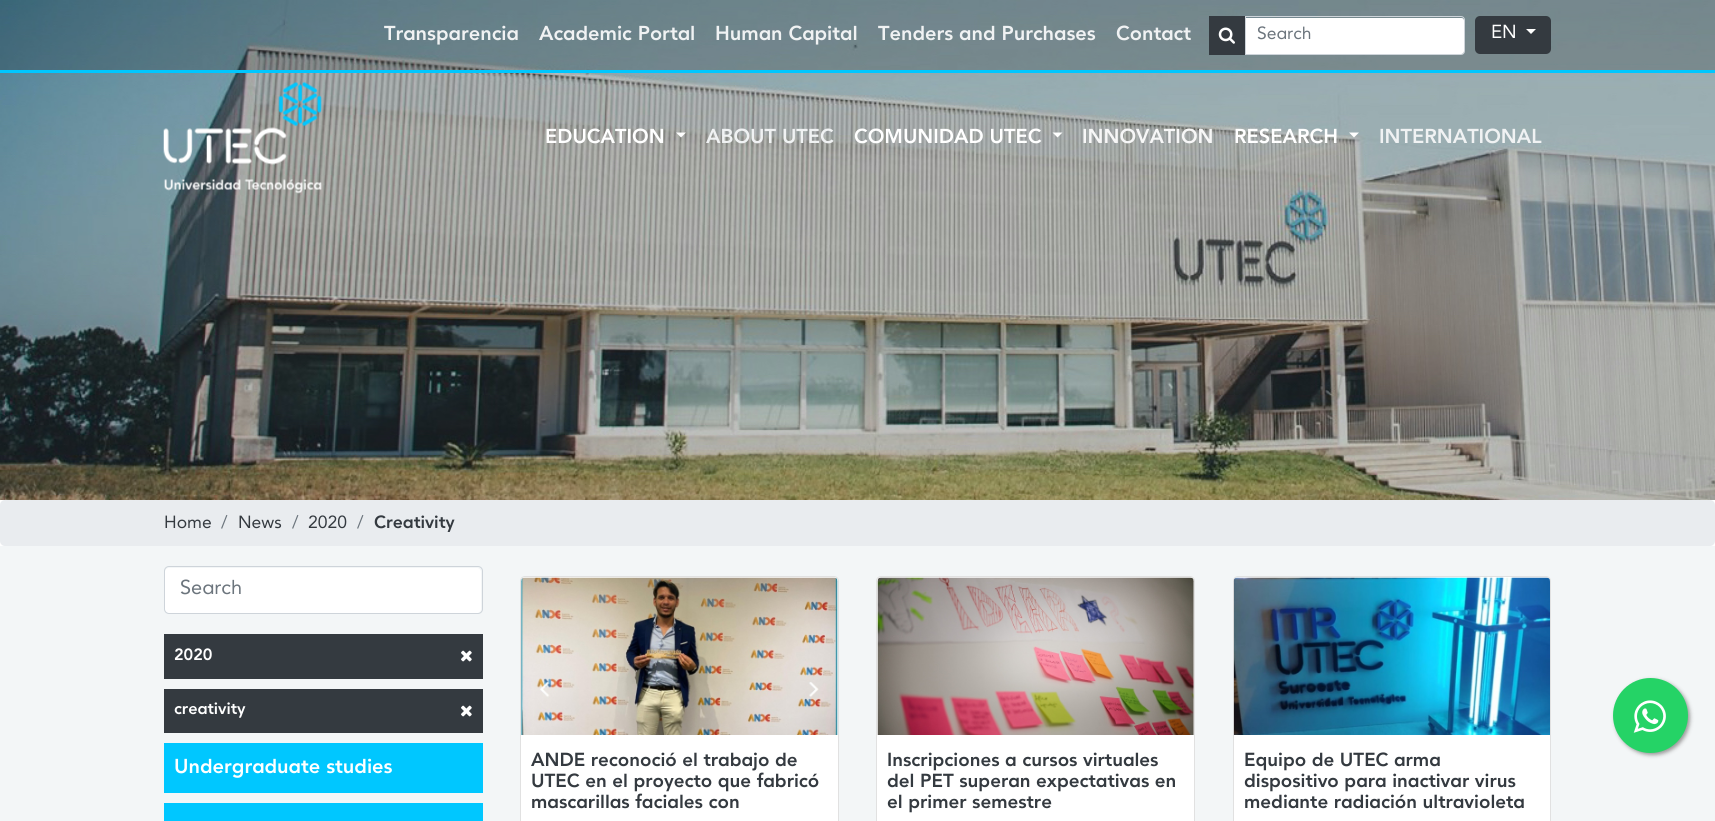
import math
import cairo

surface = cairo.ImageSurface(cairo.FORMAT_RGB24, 1715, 821)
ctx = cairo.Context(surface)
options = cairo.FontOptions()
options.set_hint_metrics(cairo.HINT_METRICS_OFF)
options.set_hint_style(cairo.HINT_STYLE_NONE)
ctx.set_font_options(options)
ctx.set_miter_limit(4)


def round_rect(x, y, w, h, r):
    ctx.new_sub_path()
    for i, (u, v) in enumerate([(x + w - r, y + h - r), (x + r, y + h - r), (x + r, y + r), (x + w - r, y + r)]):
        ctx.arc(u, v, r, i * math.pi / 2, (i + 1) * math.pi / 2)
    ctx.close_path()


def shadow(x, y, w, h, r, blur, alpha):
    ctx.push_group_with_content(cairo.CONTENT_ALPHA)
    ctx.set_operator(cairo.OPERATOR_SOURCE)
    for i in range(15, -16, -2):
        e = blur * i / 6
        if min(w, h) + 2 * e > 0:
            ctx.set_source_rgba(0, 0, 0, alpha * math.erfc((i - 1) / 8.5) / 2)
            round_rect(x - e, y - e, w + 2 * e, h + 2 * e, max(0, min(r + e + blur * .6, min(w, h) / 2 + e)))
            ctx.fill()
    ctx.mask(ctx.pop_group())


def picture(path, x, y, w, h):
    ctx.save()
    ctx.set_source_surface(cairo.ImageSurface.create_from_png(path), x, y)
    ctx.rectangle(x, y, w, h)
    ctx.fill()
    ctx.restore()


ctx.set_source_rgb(1, 1, 1)
ctx.paint()
picture("img1.png", 0, 0, 1715, 500)
ctx.set_source_rgba(0, 0, 0, 0.2)
ctx.rectangle(0, 0, 1715, 70)
ctx.fill()
ctx.set_source_rgb(0, 0.78, 1)
ctx.rectangle(0, 70, 1715, 3)
ctx.fill()
ctx.select_font_face("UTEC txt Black")
ctx.set_font_size(20)
ctx.set_source_rgb(0.941, 0.949, 0.953)
ctx.move_to(384, 40)
ctx.show_text("Transparencia")
ctx.move_to(539, 40)
ctx.show_text("Academic Portal")
ctx.move_to(715, 40)
ctx.show_text("Human Capital")
ctx.move_to(878, 40)
ctx.show_text("Tenders and Purchases")
ctx.move_to(1116, 40)
ctx.show_text("Contact")
ctx.set_source_rgb(0.204, 0.227, 0.251)
ctx.rectangle(1209, 16, 36, 39)
ctx.fill()
picture("img2.png", 1218, 27, 17, 17)
ctx.set_source_rgb(1, 1, 1)
ctx.new_path()
ctx.move_to(1246, 18)
ctx.line_to(1461.5, 18)
ctx.curve_to(1463, 18, 1464, 19, 1464, 20.5)
ctx.line_to(1464, 51.5)
ctx.curve_to(1464, 53, 1463, 54, 1461.5, 54)
ctx.line_to(1246, 54)
ctx.close_path()
ctx.fill()
ctx.new_path()
ctx.move_to(1245.5, 16.5)
ctx.line_to(1461, 16.5)
ctx.curve_to(1463, 16.5, 1464.5, 18, 1464.5, 20)
ctx.line_to(1464.5, 51)
ctx.curve_to(1464.5, 53, 1463, 54.5, 1461, 54.5)
ctx.line_to(1245.5, 54.5)
ctx.close_path()
ctx.set_source_rgb(0.808, 0.831, 0.855)
ctx.set_line_width(1)
ctx.stroke()
ctx.select_font_face("UTEC txt")
ctx.set_font_size(17.5)
ctx.set_source_rgb(0.424, 0.459, 0.49)
ctx.move_to(1257, 39)
ctx.show_text("Search")
ctx.set_source_rgb(0.204, 0.227, 0.251)
round_rect(1475, 16, 76, 38, 5)
ctx.fill()
ctx.set_font_size(18.75)
ctx.set_source_rgb(1, 1, 1)
ctx.move_to(1491, 38)
ctx.show_text("EN")
ctx.new_path()
ctx.move_to(1526, 29)
ctx.line_to(1536, 29)
ctx.line_to(1531, 34)
ctx.close_path()
ctx.fill()
picture("img3.png", 163, 82, 159, 112)
ctx.select_font_face("UTEC txt Black")
ctx.set_font_size(20)
ctx.move_to(545, 143)
ctx.show_text("EDUCATION")
ctx.new_path()
ctx.move_to(676, 132.5)
ctx.line_to(686, 132.5)
ctx.line_to(681, 137.5)
ctx.close_path()
ctx.fill()
ctx.set_source_rgb(0.941, 0.949, 0.953)
ctx.move_to(706, 143)
ctx.show_text("ABOUT UTEC")
ctx.set_source_rgb(1, 1, 1)
ctx.move_to(854, 143)
ctx.show_text("COMUNIDAD UTEC")
ctx.new_path()
ctx.move_to(1052.5, 132.5)
ctx.line_to(1062.5, 132.5)
ctx.line_to(1057.5, 137.5)
ctx.close_path()
ctx.fill()
ctx.set_source_rgb(0.965, 0.965, 0.965)
ctx.move_to(1082, 143)
ctx.show_text("INNOVATION")
ctx.set_source_rgb(1, 1, 1)
ctx.move_to(1234, 143)
ctx.show_text("RESEARCH")
ctx.new_path()
ctx.move_to(1349, 132.5)
ctx.line_to(1359, 132.5)
ctx.line_to(1354, 137.5)
ctx.close_path()
ctx.fill()
ctx.set_source_rgb(0.941, 0.949, 0.953)
ctx.move_to(1379, 143)
ctx.show_text("INTERNATIONAL")
ctx.set_source_rgb(0.914, 0.925, 0.937)
round_rect(0, 500, 1715, 46, 5)
ctx.fill()
ctx.select_font_face("UTEC txt")
ctx.set_font_size(17.5)
ctx.set_source_rgb(0.204, 0.227, 0.251)
ctx.move_to(164, 528)
ctx.show_text("Home")
ctx.set_source_rgb(0.424, 0.459, 0.49)
ctx.move_to(221, 528)
ctx.show_text("/")
ctx.set_source_rgb(0.204, 0.227, 0.251)
ctx.move_to(238, 528)
ctx.show_text("News")
ctx.set_source_rgb(0.424, 0.459, 0.49)
ctx.move_to(292, 528)
ctx.show_text("/")
ctx.set_source_rgb(0.204, 0.227, 0.251)
ctx.move_to(308, 528)
ctx.show_text("2020")
ctx.set_source_rgb(0.424, 0.459, 0.49)
ctx.move_to(357, 528)
ctx.show_text("/")
ctx.select_font_face("UTEC txt Black")
ctx.set_source_rgb(0.204, 0.227, 0.251)
ctx.move_to(374, 528)
ctx.show_text("Creativity")
ctx.set_source_rgb(0.953, 0.961, 0.965)
ctx.rectangle(0, 546, 1715, 275)
ctx.fill()
ctx.set_source_rgb(1, 1, 1)
round_rect(165, 568, 316, 45, 4)
ctx.fill()
round_rect(164.5, 566.5, 318, 47, 4.5)
ctx.set_source_rgb(0.808, 0.831, 0.855)
ctx.stroke()
ctx.select_font_face("UTEC txt")
ctx.set_font_size(20)
ctx.set_source_rgb(0.424, 0.459, 0.49)
ctx.move_to(180, 594)
ctx.show_text("Search")
ctx.set_source_rgb(0.204, 0.227, 0.251)
ctx.rectangle(164, 634, 319, 45)
ctx.fill()
ctx.select_font_face("UTEC txt Black")
ctx.set_font_size(16.25)
ctx.set_source_rgb(1, 1, 1)
ctx.move_to(174, 660)
ctx.show_text("2020")
picture("img4.png", 461, 650, 11, 12)
ctx.set_source_rgb(0.204, 0.227, 0.251)
ctx.rectangle(164, 689, 319, 44)
ctx.fill()
ctx.set_source_rgb(1, 1, 1)
ctx.move_to(174, 714)
ctx.show_text("creativity")
picture("img4.png", 461, 705, 11, 12)
ctx.set_source_rgb(0, 0.78, 1)
ctx.rectangle(164, 743, 319, 50)
ctx.fill()
ctx.set_font_size(20)
ctx.set_source_rgb(1, 1, 1)
ctx.move_to(174, 773)
ctx.show_text("Undergraduate studies")
ctx.set_source_rgb(0, 0.78, 1)
ctx.rectangle(164, 803, 319, 18)
ctx.fill()
ctx.set_source_rgb(1, 1, 1)
round_rect(520, 576, 319, 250, 5)
ctx.fill()
round_rect(520.5, 576.5, 318, 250, 4.5)
ctx.set_source_rgba(0, 0, 0, 0.12)
ctx.stroke()
picture("img5.png", 521, 577, 317, 158)
ctx.set_font_size(18.75)
ctx.set_source_rgb(0.204, 0.227, 0.251)
ctx.move_to(531, 766)
ctx.show_text("ANDE reconoció el trabajo de")
ctx.move_to(531, 787)
ctx.show_text("UTEC en el proyecto que fabricó")
ctx.move_to(531, 808)
ctx.show_text("mascarillas faciales con")
ctx.set_source_rgb(1, 1, 1)
round_rect(876, 576, 319, 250, 5)
ctx.fill()
round_rect(876.5, 576.5, 318, 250, 4.5)
ctx.set_source_rgba(0, 0, 0, 0.12)
ctx.stroke()
picture("img6.png", 877, 577, 317, 158)
ctx.set_source_rgb(0.204, 0.227, 0.251)
ctx.move_to(887, 766)
ctx.show_text("Inscripciones a cursos virtuales")
ctx.move_to(887, 787)
ctx.show_text("del PET superan expectativas en")
ctx.move_to(887, 808)
ctx.show_text("el primer semestre")
ctx.set_source_rgb(1, 1, 1)
round_rect(1233, 576, 318, 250, 5)
ctx.fill()
round_rect(1233.5, 576.5, 317, 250, 4.5)
ctx.set_source_rgba(0, 0, 0, 0.12)
ctx.stroke()
picture("img7.png", 1233, 577, 317, 158)
ctx.set_source_rgb(0.204, 0.227, 0.251)
ctx.move_to(1244, 766)
ctx.show_text("Equipo de UTEC arma")
ctx.move_to(1244, 787)
ctx.show_text("dispositivo para inactivar virus")
ctx.move_to(1244, 808)
ctx.show_text("mediante radiación ultravioleta")
ctx.set_source_rgb(0.6, 0.6, 0.6)
shadow(1615, 680, 75, 75, 37.5, 2, 1)
ctx.set_source_rgb(0.145, 0.827, 0.4)
ctx.arc(1650.5, 715.5, 37.5, 0, 2 * math.pi)
ctx.fill()
picture("img8.png", 1633, 700, 33, 33)
surface.write_to_png("page.png")
